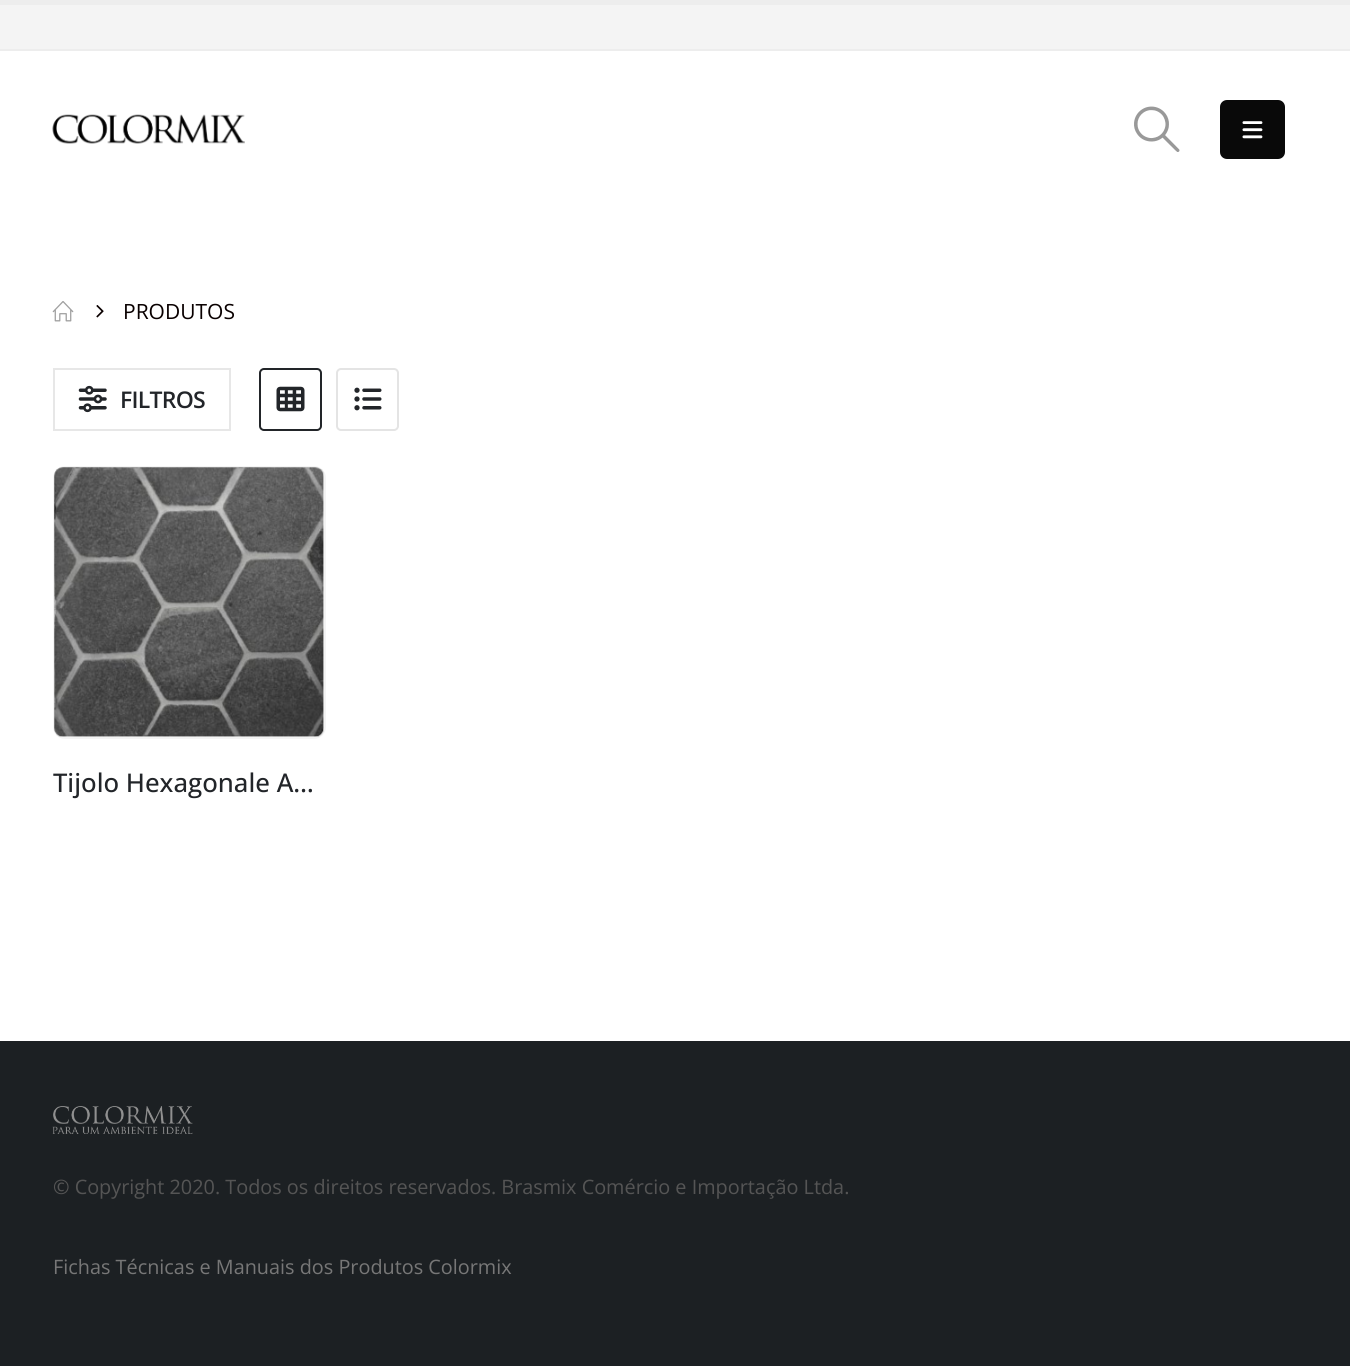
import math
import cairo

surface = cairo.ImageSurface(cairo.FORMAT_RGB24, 1350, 1366)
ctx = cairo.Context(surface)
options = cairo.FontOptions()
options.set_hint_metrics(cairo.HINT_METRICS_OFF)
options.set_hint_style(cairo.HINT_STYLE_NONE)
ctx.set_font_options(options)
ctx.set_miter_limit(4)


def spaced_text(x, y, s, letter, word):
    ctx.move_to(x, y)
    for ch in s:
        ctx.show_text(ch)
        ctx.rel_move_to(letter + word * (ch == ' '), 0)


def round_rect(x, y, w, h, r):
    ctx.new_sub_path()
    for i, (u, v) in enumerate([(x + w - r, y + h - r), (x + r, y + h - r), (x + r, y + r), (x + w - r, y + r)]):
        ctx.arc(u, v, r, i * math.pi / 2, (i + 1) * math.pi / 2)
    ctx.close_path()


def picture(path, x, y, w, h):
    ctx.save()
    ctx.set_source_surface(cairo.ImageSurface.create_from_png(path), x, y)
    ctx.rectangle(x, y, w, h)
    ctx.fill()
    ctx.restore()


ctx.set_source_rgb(1, 1, 1)
ctx.paint()
ctx.set_source_rgb(0.929, 0.929, 0.929)
ctx.rectangle(0, 0, 1350, 5)
ctx.fill()
ctx.set_source_rgb(0.957, 0.957, 0.957)
ctx.rectangle(0, 5, 1350, 44)
ctx.fill()
ctx.set_source_rgb(0.929, 0.929, 0.929)
ctx.rectangle(0, 49, 1350, 2)
ctx.fill()
picture("img1.png", 52, 114, 193, 30)
picture("img2.png", 1134, 106, 46, 46)
ctx.set_source_rgb(0.039, 0.039, 0.039)
round_rect(1220, 100, 65, 59, 7)
ctx.fill()
picture("img3.png", 1242, 121, 21, 18)
picture("img4.png", 52, 301, 22, 21)
picture("img5.png", 96, 305, 8, 13)
ctx.select_font_face("Open Sans")
ctx.set_font_size(21)
ctx.set_source_rgb(0.039, 0, 0)
ctx.move_to(123, 319)
ctx.show_text("PRODUTOS")
ctx.rectangle(54, 369, 176, 61)
ctx.set_source_rgb(0.906, 0.906, 0.906)
ctx.stroke()
picture("img6.png", 78, 385, 29, 28)
ctx.select_font_face("Open Sans SemiBold")
ctx.set_font_size(23)
ctx.set_source_rgb(0.133, 0.145, 0.161)
spaced_text(120, 408, "FILTROS", -0.75, 0)
round_rect(260, 369, 61, 61, 4)
ctx.stroke()
picture("img7.png", 276, 386, 29, 26)
round_rect(337, 369, 61, 61, 4)
ctx.set_source_rgb(0.894, 0.894, 0.894)
ctx.stroke()
picture("img8.png", 354, 387, 28, 24)
round_rect(54, 467, 271, 271, 11)
ctx.set_source_rgb(0.957, 0.957, 0.957)
ctx.stroke()
picture("img9.png", 54, 467, 270, 270)
ctx.save()
ctx.rectangle(53, 767, 273, 33)
ctx.clip()
ctx.select_font_face("Open Sans Medium")
ctx.set_font_size(25.75)
ctx.set_source_rgb(0.133, 0.145, 0.161)
ctx.move_to(53, 792)
ctx.show_text("Tijolo Hexagonale A…")
ctx.restore()
ctx.set_source_rgb(0.11, 0.125, 0.137)
ctx.rectangle(0, 1041, 1350, 325)
ctx.fill()
picture("img10.png", 52, 1106, 141, 28)
ctx.select_font_face("Open Sans")
ctx.set_font_size(19.85)
ctx.set_source_rgb(0.333, 0.333, 0.333)
ctx.move_to(53, 1194)
ctx.show_text("© Copyright 2020. Todos os direitos reservados. Brasmix Comércio e Importação Ltda.")
ctx.set_source_rgb(0.467, 0.467, 0.467)
ctx.move_to(53, 1274)
ctx.show_text("Fichas Técnicas e Manuais dos Produtos Colormix")
surface.write_to_png("page.png")
